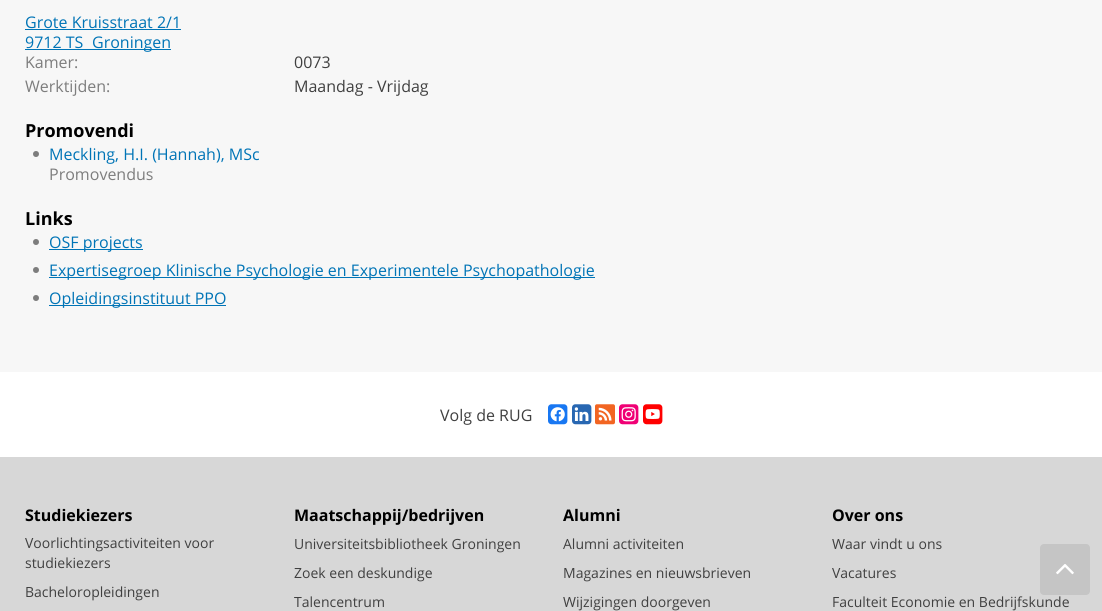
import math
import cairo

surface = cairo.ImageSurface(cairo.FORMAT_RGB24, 1102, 611)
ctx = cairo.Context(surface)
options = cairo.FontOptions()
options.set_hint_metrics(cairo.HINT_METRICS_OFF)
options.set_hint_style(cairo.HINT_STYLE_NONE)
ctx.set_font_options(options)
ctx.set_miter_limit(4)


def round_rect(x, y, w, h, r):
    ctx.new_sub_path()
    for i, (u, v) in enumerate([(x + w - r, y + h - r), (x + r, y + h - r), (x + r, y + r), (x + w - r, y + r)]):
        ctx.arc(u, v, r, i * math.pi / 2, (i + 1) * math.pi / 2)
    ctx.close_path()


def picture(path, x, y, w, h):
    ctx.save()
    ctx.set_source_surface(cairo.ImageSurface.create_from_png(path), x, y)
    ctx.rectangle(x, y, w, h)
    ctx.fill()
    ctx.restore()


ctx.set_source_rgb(0.965, 0.965, 0.965)
ctx.paint()
ctx.select_font_face("Open Sans")
ctx.set_font_size(16)
ctx.set_source_rgb(0, 0.455, 0.714)
ctx.move_to(25, 28)
ctx.show_text("Grote Kruisstraat 2/1")
ctx.rectangle(25, 29, 156, 1)
ctx.fill()
ctx.move_to(25, 48)
ctx.show_text("9712 TS")
ctx.rectangle(25, 49, 146, 1)
ctx.fill()
ctx.move_to(92, 48)
ctx.show_text("Groningen")
ctx.set_source_rgb(0.49, 0.49, 0.49)
ctx.move_to(25, 68)
ctx.show_text("Kamer:")
ctx.set_source_rgb(0.251, 0.251, 0.251)
ctx.move_to(294, 68)
ctx.show_text("0073")
ctx.set_source_rgb(0.49, 0.49, 0.49)
ctx.move_to(25, 92)
ctx.show_text("Werktijden:")
ctx.set_source_rgb(0.251, 0.251, 0.251)
ctx.move_to(294, 92)
ctx.show_text("Maandag - Vrijdag")
ctx.select_font_face("Open Sans", cairo.FONT_SLANT_NORMAL, cairo.FONT_WEIGHT_BOLD)
ctx.set_font_size(18)
ctx.set_source_rgb(0, 0, 0)
ctx.move_to(25, 137)
ctx.show_text("Promovendi")
ctx.set_source_rgb(0.49, 0.49, 0.49)
ctx.new_path()
ctx.arc(36, 154, 3, 0, 2 * math.pi)
ctx.fill()
ctx.select_font_face("Open Sans")
ctx.set_font_size(16)
ctx.set_source_rgb(0, 0.455, 0.714)
ctx.move_to(49, 160)
ctx.show_text("Meckling, H.I. (Hannah), MSc")
ctx.set_source_rgb(0.49, 0.49, 0.49)
ctx.move_to(49, 180)
ctx.show_text("Promovendus")
ctx.select_font_face("Open Sans", cairo.FONT_SLANT_NORMAL, cairo.FONT_WEIGHT_BOLD)
ctx.set_font_size(18)
ctx.set_source_rgb(0, 0, 0)
ctx.move_to(25, 225)
ctx.show_text("Links")
ctx.set_source_rgb(0.49, 0.49, 0.49)
ctx.new_path()
ctx.arc(36, 242, 3, 0, 2 * math.pi)
ctx.fill()
ctx.set_source_rgb(0, 0.455, 0.714)
ctx.rectangle(49, 249, 94, 1)
ctx.fill()
ctx.select_font_face("Open Sans")
ctx.set_font_size(16)
ctx.move_to(49, 248)
ctx.show_text("OSF projects")
ctx.set_source_rgb(0.49, 0.49, 0.49)
ctx.new_path()
ctx.arc(36, 270, 3, 0, 2 * math.pi)
ctx.fill()
ctx.set_source_rgb(0, 0.455, 0.714)
ctx.rectangle(49, 277, 546, 1)
ctx.fill()
ctx.move_to(49, 276)
ctx.show_text("Expertisegroep Klinische Psychologie en Experimentele Psychopathologie")
ctx.set_source_rgb(0.49, 0.49, 0.49)
ctx.new_path()
ctx.arc(36, 298, 3, 0, 2 * math.pi)
ctx.fill()
ctx.set_source_rgb(0, 0.455, 0.714)
ctx.rectangle(49, 305, 177, 1)
ctx.fill()
ctx.move_to(49, 304)
ctx.show_text("Opleidingsinstituut PPO")
ctx.set_source_rgb(1, 1, 1)
ctx.rectangle(0, 372, 1102, 85)
ctx.fill()
ctx.set_source_rgb(0.251, 0.251, 0.251)
ctx.move_to(440, 421)
ctx.show_text("Volg de RUG")
picture("img1.png", 548, 404, 20, 21)
picture("img2.png", 572, 404, 20, 21)
picture("img3.png", 595, 404, 20, 21)
picture("img4.png", 619, 404, 20, 21)
picture("img5.png", 643, 404, 20, 21)
ctx.set_source_rgb(0.843, 0.843, 0.843)
ctx.rectangle(0, 457, 1102, 154)
ctx.fill()
ctx.select_font_face("Open Sans", cairo.FONT_SLANT_NORMAL, cairo.FONT_WEIGHT_BOLD)
ctx.set_source_rgb(0, 0, 0)
ctx.move_to(25, 521)
ctx.show_text("Studiekiezers")
ctx.select_font_face("Open Sans")
ctx.set_font_size(14)
ctx.set_source_rgb(0.251, 0.251, 0.251)
ctx.move_to(25, 548)
ctx.show_text("Voorlichtingsactiviteiten voor")
ctx.move_to(25, 568)
ctx.show_text("studiekiezers")
ctx.move_to(25, 597)
ctx.show_text("Bacheloropleidingen")
ctx.select_font_face("Open Sans", cairo.FONT_SLANT_NORMAL, cairo.FONT_WEIGHT_BOLD)
ctx.set_font_size(16)
ctx.set_source_rgb(0, 0, 0)
ctx.move_to(294, 521)
ctx.show_text("Maatschappij/bedrijven")
ctx.select_font_face("Open Sans")
ctx.set_font_size(14)
ctx.set_source_rgb(0.251, 0.251, 0.251)
ctx.move_to(294, 549)
ctx.show_text("Universiteitsbibliotheek Groningen")
ctx.move_to(294, 578)
ctx.show_text("Zoek een deskundige")
ctx.move_to(294, 607)
ctx.show_text("Talencentrum")
ctx.select_font_face("Open Sans", cairo.FONT_SLANT_NORMAL, cairo.FONT_WEIGHT_BOLD)
ctx.set_font_size(16)
ctx.set_source_rgb(0, 0, 0)
ctx.move_to(563, 521)
ctx.show_text("Alumni")
ctx.select_font_face("Open Sans")
ctx.set_font_size(14)
ctx.set_source_rgb(0.251, 0.251, 0.251)
ctx.move_to(563, 549)
ctx.show_text("Alumni activiteiten")
ctx.move_to(563, 578)
ctx.show_text("Magazines en nieuwsbrieven")
ctx.move_to(563, 607)
ctx.show_text("Wijzigingen doorgeven")
ctx.select_font_face("Open Sans", cairo.FONT_SLANT_NORMAL, cairo.FONT_WEIGHT_BOLD)
ctx.set_font_size(16)
ctx.set_source_rgb(0, 0, 0)
ctx.move_to(832, 521)
ctx.show_text("Over ons")
ctx.select_font_face("Open Sans")
ctx.set_font_size(14)
ctx.set_source_rgb(0.251, 0.251, 0.251)
ctx.move_to(832, 549)
ctx.show_text("Waar vindt u ons")
ctx.move_to(832, 578)
ctx.show_text("Vacatures")
ctx.move_to(832, 607)
ctx.show_text("Faculteit Economie en Bedrijfskunde")
ctx.set_source_rgb(0.773, 0.773, 0.773)
round_rect(1040, 544, 50, 51, 4)
ctx.fill()
picture("img6.png", 1056, 564, 18, 11)
surface.write_to_png("page.png")
